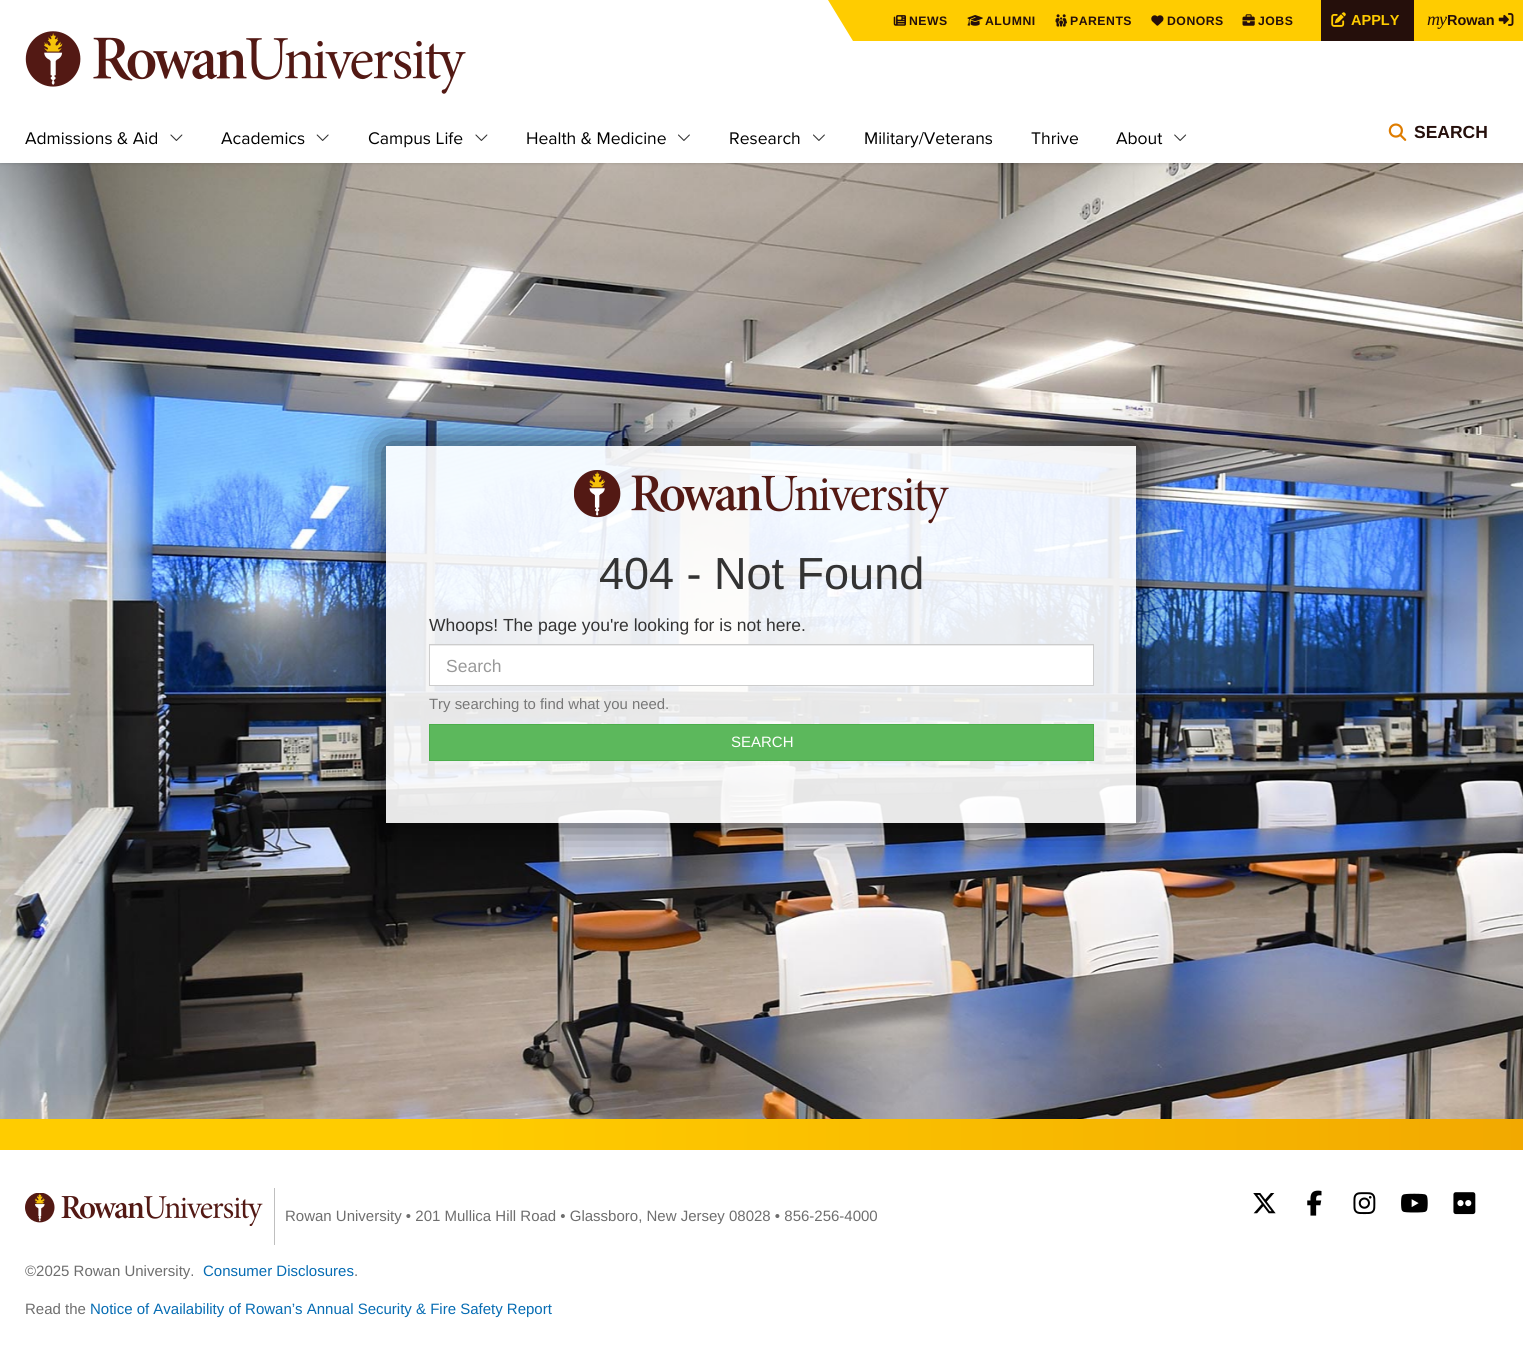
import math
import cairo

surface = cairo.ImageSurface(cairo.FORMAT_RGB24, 1523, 1366)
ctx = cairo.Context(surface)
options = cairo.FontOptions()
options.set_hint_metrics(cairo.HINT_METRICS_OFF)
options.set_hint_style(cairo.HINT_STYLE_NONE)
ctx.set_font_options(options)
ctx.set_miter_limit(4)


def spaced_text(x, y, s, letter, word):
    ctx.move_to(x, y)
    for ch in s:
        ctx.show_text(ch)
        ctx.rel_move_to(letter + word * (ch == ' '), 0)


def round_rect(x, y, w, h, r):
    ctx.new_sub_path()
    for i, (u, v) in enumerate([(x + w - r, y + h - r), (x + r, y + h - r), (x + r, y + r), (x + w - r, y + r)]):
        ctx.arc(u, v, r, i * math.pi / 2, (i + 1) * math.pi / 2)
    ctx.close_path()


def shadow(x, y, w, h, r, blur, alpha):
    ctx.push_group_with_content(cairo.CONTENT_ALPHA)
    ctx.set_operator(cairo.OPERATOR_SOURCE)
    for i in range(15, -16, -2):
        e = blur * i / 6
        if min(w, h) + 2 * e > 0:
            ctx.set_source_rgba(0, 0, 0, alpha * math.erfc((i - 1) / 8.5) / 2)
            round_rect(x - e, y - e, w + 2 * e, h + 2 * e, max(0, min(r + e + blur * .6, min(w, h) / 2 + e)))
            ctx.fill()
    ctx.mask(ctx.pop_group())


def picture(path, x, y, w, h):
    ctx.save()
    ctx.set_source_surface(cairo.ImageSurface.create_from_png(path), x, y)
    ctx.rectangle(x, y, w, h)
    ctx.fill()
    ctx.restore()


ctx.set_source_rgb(1, 1, 1)
ctx.paint()
picture("img1.png", 0, 163, 1523, 956)
ctx.set_source_rgb(0, 0, 0)
shadow(0, 0, 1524, 163, 0, 2, 0.19)
ctx.set_source_rgb(1, 1, 1)
ctx.rectangle(0, 0, 1523, 163)
ctx.fill()
ctx.set_source_rgb(1, 0.8, 0)
ctx.rectangle(853, 0, 670, 41)
ctx.fill()
ctx.new_path()
ctx.move_to(853, 0)
ctx.line_to(828, 0)
ctx.line_to(853, 41)
ctx.close_path()
ctx.fill()
picture("img2.png", 893, 15, 13, 11)
ctx.select_font_face("Liberation Sans", cairo.FONT_SLANT_NORMAL, cairo.FONT_WEIGHT_BOLD)
ctx.set_font_size(12.25)
ctx.set_source_rgb(0.145, 0.059, 0.043)
spaced_text(909, 25, "NEWS", 0.5, 0)
picture("img3.png", 967, 15, 16, 11)
spaced_text(985, 25, "ALUMNI", 0.5, 0)
picture("img4.png", 1055, 14, 12, 13)
spaced_text(1070, 25, "PARENTS", 0.5, 0)
picture("img5.png", 1151, 15, 13, 11)
spaced_text(1167, 25, "DONORS", 0.5, 0)
picture("img6.png", 1242, 14, 13, 12)
spaced_text(1258, 25, "JOBS", 0.5, 0)
ctx.rectangle(1321, 0, 93, 41)
ctx.fill()
picture("img7.png", 1331, 12, 15, 15)
ctx.set_font_size(14.5)
ctx.set_source_rgb(1, 0.8, 0)
ctx.move_to(1351, 25)
ctx.show_text("APPLY")
ctx.select_font_face("Liberation Serif", cairo.FONT_SLANT_ITALIC)
ctx.set_font_size(18)
ctx.set_source_rgb(0.145, 0.059, 0.043)
spaced_text(1427, 25, "my", -1, 0)
ctx.select_font_face("Liberation Sans", cairo.FONT_SLANT_NORMAL, cairo.FONT_WEIGHT_BOLD)
ctx.set_font_size(14.5)
ctx.move_to(1447, 25)
ctx.show_text("Rowan")
picture("img8.png", 1498, 13, 16, 13)
picture("img9.png", 25, 31, 441, 63)
ctx.select_font_face("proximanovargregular")
ctx.set_font_size(17.5)
ctx.set_source_rgb(0, 0, 0)
ctx.move_to(25, 144)
ctx.show_text("Admissions & Aid")
picture("img10.png", 170, 134, 13, 7)
ctx.move_to(221, 144)
ctx.show_text("Academics")
picture("img11.png", 316, 134, 13, 7)
ctx.move_to(368, 144)
ctx.show_text("Campus Life")
picture("img10.png", 475, 134, 13, 7)
ctx.move_to(526, 144)
ctx.show_text("Health & Medicine")
picture("img12.png", 678, 134, 12, 7)
ctx.move_to(729, 144)
ctx.show_text("Research")
picture("img12.png", 813, 134, 12, 7)
ctx.move_to(864, 144)
ctx.show_text("Military/Veterans")
ctx.move_to(1031, 144)
ctx.show_text("Thrive")
ctx.move_to(1116, 144)
ctx.show_text("About")
picture("img13.png", 1174, 134, 13, 7)
picture("img14.png", 1388, 123, 19, 18)
ctx.select_font_face("Liberation Sans", cairo.FONT_SLANT_NORMAL, cairo.FONT_WEIGHT_BOLD)
ctx.set_source_rgb(0.145, 0.059, 0.043)
ctx.move_to(1414, 138)
ctx.show_text("SEARCH")
ctx.save()
ctx.set_fill_rule(cairo.FILL_RULE_EVEN_ODD)
ctx.new_path()
ctx.move_to(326, 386)
ctx.line_to(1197, 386)
ctx.line_to(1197, 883)
ctx.line_to(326, 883)
ctx.close_path()
ctx.move_to(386, 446)
ctx.line_to(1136, 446)
ctx.line_to(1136, 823)
ctx.line_to(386, 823)
ctx.close_path()
ctx.clip()
ctx.set_source_rgb(0, 0, 0)
shadow(384, 444, 755, 381, 0, 19, 0.75)
ctx.restore()
ctx.set_source_rgba(1, 1, 1, 0.9)
ctx.rectangle(386, 446, 750, 377)
ctx.fill()
picture("img15.png", 574, 470, 375, 54)
ctx.select_font_face("Liberation Sans")
ctx.set_font_size(45)
ctx.set_source_rgb(0.2, 0.2, 0.2)
ctx.move_to(599, 589)
ctx.show_text("404 - Not Found")
ctx.set_font_size(17.5)
ctx.move_to(429, 631)
ctx.show_text("Whoops! The page you're looking for is not here.")
ctx.set_source_rgb(1, 1, 1)
ctx.rectangle(430, 646, 663, 39)
ctx.fill()
ctx.set_source_rgb(0.925, 0.925, 0.925)
ctx.rectangle(430, 645, 663, 1)
ctx.fill()
ctx.rectangle(429.5, 644.5, 664, 41)
ctx.set_source_rgb(0.8, 0.8, 0.8)
ctx.set_line_width(1)
ctx.stroke()
ctx.set_source_rgb(0.6, 0.6, 0.6)
ctx.move_to(446, 672)
ctx.show_text("Search")
ctx.set_font_size(14.9)
ctx.set_source_rgb(0.467, 0.467, 0.467)
ctx.move_to(429, 709)
ctx.show_text("Try searching to find what you need.")
ctx.set_source_rgb(0.361, 0.722, 0.361)
ctx.rectangle(429.5, 724.5, 664, 36)
ctx.fill_preserve()
ctx.set_source_rgb(0.298, 0.682, 0.298)
ctx.stroke()
ctx.set_font_size(15)
ctx.set_source_rgb(1, 1, 1)
ctx.move_to(731, 747)
ctx.show_text("SEARCH")
gradient = cairo.LinearGradient(0, 1134, 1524, 1134)
gradient.add_color_stop_rgba(0.3, 1, 0.8, 0, 1)
gradient.add_color_stop_rgba(1, 0.949, 0.663, 0, 1)
ctx.set_source(gradient)
ctx.rectangle(0, 1119, 1523, 31)
ctx.fill()
picture("img16.png", 1253, 1193, 23, 21)
picture("img17.png", 1307, 1190, 15, 26)
picture("img18.png", 1353, 1192, 23, 23)
picture("img19.png", 1401, 1193, 27, 20)
picture("img20.png", 1453, 1192, 23, 23)
picture("img21.png", 25, 1193, 238, 33)
ctx.set_source_rgb(0.749, 0.749, 0.749)
ctx.rectangle(274, 1188, 1, 57)
ctx.fill()
ctx.set_source_rgb(0.431, 0.431, 0.431)
ctx.move_to(285, 1221)
ctx.show_text("Rowan University • 201 Mullica Hill Road • Glassboro, New Jersey 08028 • 856-256-4000")
ctx.move_to(25, 1276)
ctx.show_text("©2025 Rowan University.")
ctx.set_source_rgb(0.027, 0.424, 0.702)
ctx.move_to(203, 1276)
ctx.show_text("Consumer Disclosures")
ctx.set_source_rgb(0.431, 0.431, 0.431)
ctx.move_to(354, 1276)
ctx.show_text(".")
ctx.move_to(25, 1314)
ctx.show_text("Read the")
ctx.set_source_rgb(0.027, 0.424, 0.702)
ctx.move_to(90, 1314)
ctx.show_text("Notice of Availability of Rowan’s Annual Security & Fire Safety Report")
surface.write_to_png("page.png")
